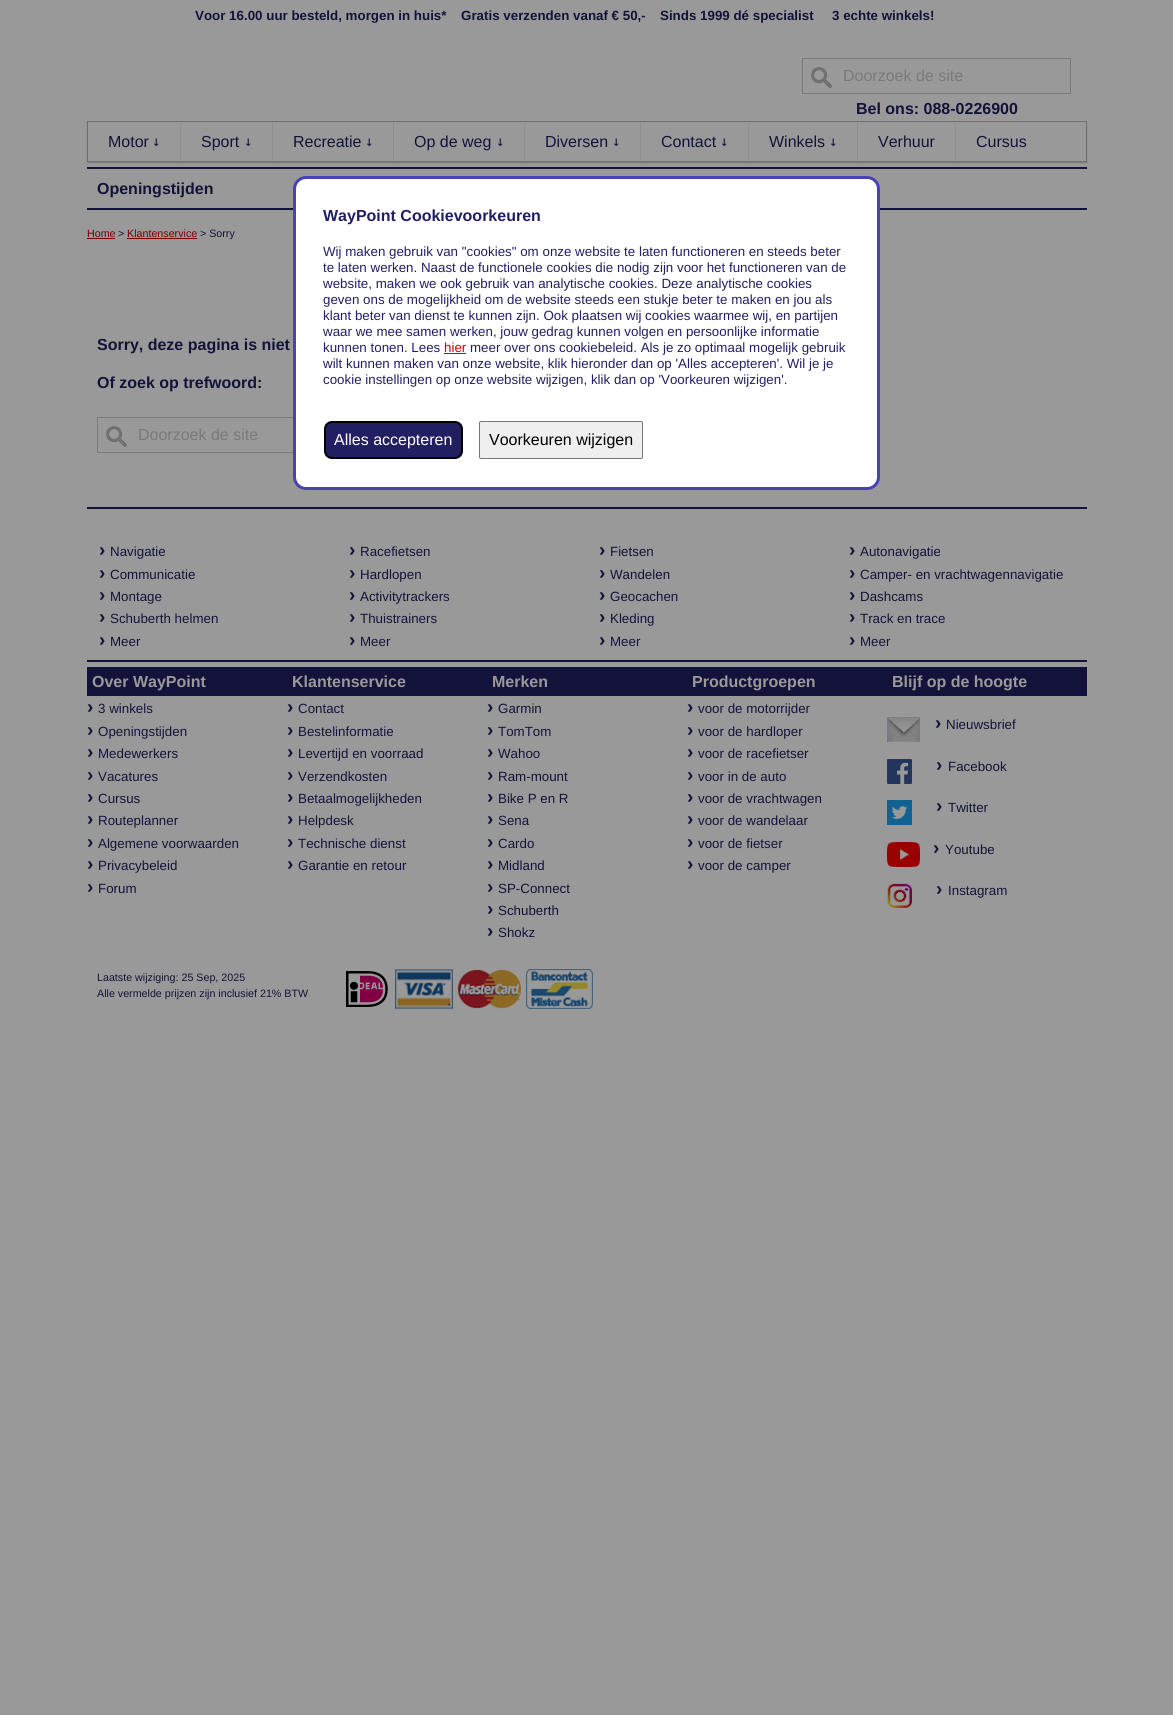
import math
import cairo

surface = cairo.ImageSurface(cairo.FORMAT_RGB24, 1173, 1715)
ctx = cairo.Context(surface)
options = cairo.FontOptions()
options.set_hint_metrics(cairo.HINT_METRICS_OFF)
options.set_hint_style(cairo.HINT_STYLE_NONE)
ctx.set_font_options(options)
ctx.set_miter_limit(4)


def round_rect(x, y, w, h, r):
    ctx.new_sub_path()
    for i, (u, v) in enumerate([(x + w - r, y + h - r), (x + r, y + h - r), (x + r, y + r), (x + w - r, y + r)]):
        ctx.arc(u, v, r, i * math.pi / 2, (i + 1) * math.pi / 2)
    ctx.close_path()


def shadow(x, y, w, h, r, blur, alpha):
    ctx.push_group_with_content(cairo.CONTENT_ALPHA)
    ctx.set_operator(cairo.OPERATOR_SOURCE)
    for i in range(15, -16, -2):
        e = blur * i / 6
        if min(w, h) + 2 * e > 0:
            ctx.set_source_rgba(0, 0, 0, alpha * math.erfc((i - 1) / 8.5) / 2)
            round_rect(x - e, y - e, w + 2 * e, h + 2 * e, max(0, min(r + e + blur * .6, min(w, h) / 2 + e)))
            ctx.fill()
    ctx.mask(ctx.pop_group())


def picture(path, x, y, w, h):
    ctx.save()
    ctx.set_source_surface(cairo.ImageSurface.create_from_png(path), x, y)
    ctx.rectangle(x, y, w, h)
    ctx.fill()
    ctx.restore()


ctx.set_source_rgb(0.6, 0.6, 0.6)
ctx.paint()
ctx.select_font_face("Liberation Sans", cairo.FONT_SLANT_NORMAL, cairo.FONT_WEIGHT_BOLD)
ctx.set_font_size(13.35)
ctx.set_source_rgb(0.078, 0.075, 0.227)
ctx.move_to(195, 20)
ctx.show_text("Voor 16.00 uur besteld, morgen in huis*")
ctx.move_to(461, 20)
ctx.show_text("Gratis verzenden vanaf € 50,-")
ctx.move_to(660, 20)
ctx.show_text("Sinds 1999 dé specialist")
ctx.move_to(832, 20)
ctx.show_text("3 echte winkels!")
picture("img1.png", 811, 67, 21, 21)
ctx.rectangle(802.5, 58.5, 268, 35)
ctx.set_source_rgb(0.478, 0.478, 0.478)
ctx.set_line_width(1)
ctx.stroke()
ctx.select_font_face("Liberation Sans")
ctx.set_font_size(16)
ctx.move_to(843, 81)
ctx.show_text("Doorzoek de site")
ctx.select_font_face("Liberation Sans", cairo.FONT_SLANT_NORMAL, cairo.FONT_WEIGHT_BOLD)
ctx.set_source_rgb(0.078, 0.075, 0.227)
ctx.move_to(856, 114)
ctx.show_text("Bel ons: 088-0226900")
ctx.save()
ctx.set_fill_rule(cairo.FILL_RULE_EVEN_ODD)
ctx.new_path()
ctx.move_to(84, 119)
ctx.line_to(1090, 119)
ctx.line_to(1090, 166)
ctx.line_to(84, 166)
ctx.close_path()
ctx.move_to(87, 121)
ctx.line_to(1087, 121)
ctx.line_to(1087, 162)
ctx.line_to(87, 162)
ctx.close_path()
ctx.clip()
ctx.set_source_rgb(0, 0, 0)
shadow(87, 122, 1000, 41, 0, 0.5, 0.2)
ctx.restore()
ctx.rectangle(87.5, 121.5, 999, 40)
ctx.set_source_rgb(0.439, 0.439, 0.439)
ctx.stroke()
ctx.select_font_face("Liberation Sans")
ctx.set_source_rgb(0.078, 0.075, 0.227)
ctx.move_to(108, 147)
ctx.show_text("Motor")
ctx.select_font_face("DejaVu Sans Mono")
ctx.set_font_size(14)
ctx.move_to(152, 146)
ctx.show_text("↓")
ctx.set_source_rgb(0.561, 0.561, 0.561)
ctx.rectangle(180, 122, 1, 39)
ctx.fill()
ctx.select_font_face("Liberation Sans")
ctx.set_font_size(16)
ctx.set_source_rgb(0.078, 0.075, 0.227)
ctx.move_to(201, 147)
ctx.show_text("Sport")
ctx.select_font_face("DejaVu Sans Mono")
ctx.set_font_size(14)
ctx.move_to(244, 146)
ctx.show_text("↓")
ctx.set_source_rgb(0.561, 0.561, 0.561)
ctx.rectangle(272, 122, 1, 39)
ctx.fill()
ctx.select_font_face("Liberation Sans")
ctx.set_font_size(16)
ctx.set_source_rgb(0.078, 0.075, 0.227)
ctx.move_to(293, 147)
ctx.show_text("Recreatie")
ctx.select_font_face("DejaVu Sans Mono")
ctx.set_font_size(14)
ctx.move_to(365, 146)
ctx.show_text("↓")
ctx.set_source_rgb(0.561, 0.561, 0.561)
ctx.rectangle(393, 122, 1, 39)
ctx.fill()
ctx.select_font_face("Liberation Sans")
ctx.set_font_size(16)
ctx.set_source_rgb(0.078, 0.075, 0.227)
ctx.move_to(414, 147)
ctx.show_text("Op de weg")
ctx.select_font_face("DejaVu Sans Mono")
ctx.set_font_size(14)
ctx.move_to(496, 146)
ctx.show_text("↓")
ctx.set_source_rgb(0.561, 0.561, 0.561)
ctx.rectangle(524, 122, 1, 39)
ctx.fill()
ctx.select_font_face("Liberation Sans")
ctx.set_font_size(16)
ctx.set_source_rgb(0.078, 0.075, 0.227)
ctx.move_to(545, 147)
ctx.show_text("Diversen")
ctx.select_font_face("DejaVu Sans Mono")
ctx.set_font_size(14)
ctx.move_to(612, 146)
ctx.show_text("↓")
ctx.set_source_rgb(0.561, 0.561, 0.561)
ctx.rectangle(640, 122, 1, 39)
ctx.fill()
ctx.select_font_face("Liberation Sans")
ctx.set_font_size(16)
ctx.set_source_rgb(0.078, 0.075, 0.227)
ctx.move_to(661, 147)
ctx.show_text("Contact")
ctx.select_font_face("DejaVu Sans Mono")
ctx.set_font_size(14)
ctx.move_to(720, 146)
ctx.show_text("↓")
ctx.set_source_rgb(0.561, 0.561, 0.561)
ctx.rectangle(748, 122, 1, 39)
ctx.fill()
ctx.select_font_face("Liberation Sans")
ctx.set_font_size(16)
ctx.set_source_rgb(0.078, 0.075, 0.227)
ctx.move_to(769, 147)
ctx.show_text("Winkels")
ctx.select_font_face("DejaVu Sans Mono")
ctx.set_font_size(14)
ctx.move_to(829, 146)
ctx.show_text("↓")
ctx.set_source_rgb(0.561, 0.561, 0.561)
ctx.rectangle(857, 122, 1, 39)
ctx.fill()
ctx.select_font_face("Liberation Sans")
ctx.set_font_size(16)
ctx.set_source_rgb(0.078, 0.075, 0.227)
ctx.move_to(878, 147)
ctx.show_text("Verhuur")
ctx.set_source_rgb(0.561, 0.561, 0.561)
ctx.rectangle(955, 122, 1, 39)
ctx.fill()
ctx.set_source_rgb(0.078, 0.075, 0.227)
ctx.move_to(976, 147)
ctx.show_text("Cursus")
ctx.set_source_rgb(0.078, 0.071, 0.227)
ctx.rectangle(87, 167, 1000, 2)
ctx.fill()
ctx.rectangle(87, 208, 1000, 2)
ctx.fill()
ctx.select_font_face("Liberation Sans", cairo.FONT_SLANT_NORMAL, cairo.FONT_WEIGHT_BOLD)
ctx.set_source_rgb(0.078, 0.075, 0.227)
ctx.move_to(97, 194)
ctx.show_text("Openingstijden")
ctx.select_font_face("Liberation Sans")
ctx.set_font_size(10.7)
ctx.set_source_rgb(0.478, 0, 0)
ctx.move_to(87, 237)
ctx.show_text("Home")
ctx.rectangle(87, 238, 28, 1)
ctx.fill()
ctx.set_source_rgb(0.078, 0.075, 0.227)
ctx.move_to(118, 237)
ctx.show_text(">")
ctx.set_source_rgb(0.478, 0, 0)
ctx.move_to(127, 237)
ctx.show_text("Klantenservice")
ctx.rectangle(127, 238, 70, 1)
ctx.fill()
ctx.set_source_rgb(0.078, 0.075, 0.227)
ctx.move_to(200, 237)
ctx.show_text("> Sorry")
ctx.select_font_face("Liberation Sans", cairo.FONT_SLANT_NORMAL, cairo.FONT_WEIGHT_BOLD)
ctx.set_font_size(16)
ctx.move_to(97, 350)
ctx.show_text("Sorry, deze pagina is niet")
ctx.move_to(97, 388)
ctx.show_text("Of zoek op trefwoord:")
picture("img1.png", 106, 426, 21, 21)
ctx.rectangle(97.5, 417.5, 268, 35)
ctx.set_source_rgb(0.478, 0.478, 0.478)
ctx.stroke()
ctx.select_font_face("Liberation Sans")
ctx.move_to(138, 440)
ctx.show_text("Doorzoek de site")
ctx.set_source_rgb(0.078, 0.071, 0.227)
ctx.rectangle(87, 507, 1000, 2)
ctx.fill()
ctx.select_font_face("Liberation Sans", cairo.FONT_SLANT_NORMAL, cairo.FONT_WEIGHT_BOLD)
ctx.set_font_size(19)
ctx.set_source_rgb(0.078, 0.075, 0.227)
ctx.move_to(99, 556)
ctx.show_text("›")
ctx.select_font_face("Liberation Sans")
ctx.set_font_size(13.35)
ctx.move_to(110, 556)
ctx.show_text("Navigatie")
ctx.select_font_face("Liberation Sans", cairo.FONT_SLANT_NORMAL, cairo.FONT_WEIGHT_BOLD)
ctx.set_font_size(19)
ctx.move_to(99, 579)
ctx.show_text("›")
ctx.select_font_face("Liberation Sans")
ctx.set_font_size(13.35)
ctx.move_to(110, 579)
ctx.show_text("Communicatie")
ctx.select_font_face("Liberation Sans", cairo.FONT_SLANT_NORMAL, cairo.FONT_WEIGHT_BOLD)
ctx.set_font_size(19)
ctx.move_to(99, 601)
ctx.show_text("›")
ctx.select_font_face("Liberation Sans")
ctx.set_font_size(13.35)
ctx.move_to(110, 601)
ctx.show_text("Montage")
ctx.select_font_face("Liberation Sans", cairo.FONT_SLANT_NORMAL, cairo.FONT_WEIGHT_BOLD)
ctx.set_font_size(19)
ctx.move_to(99, 623)
ctx.show_text("›")
ctx.select_font_face("Liberation Sans")
ctx.set_font_size(13.35)
ctx.move_to(110, 623)
ctx.show_text("Schuberth helmen")
ctx.select_font_face("Liberation Sans", cairo.FONT_SLANT_NORMAL, cairo.FONT_WEIGHT_BOLD)
ctx.set_font_size(19)
ctx.move_to(99, 646)
ctx.show_text("›")
ctx.select_font_face("Liberation Sans")
ctx.set_font_size(13.35)
ctx.move_to(110, 646)
ctx.show_text("Meer")
ctx.select_font_face("Liberation Sans", cairo.FONT_SLANT_NORMAL, cairo.FONT_WEIGHT_BOLD)
ctx.set_font_size(19)
ctx.move_to(349, 556)
ctx.show_text("›")
ctx.select_font_face("Liberation Sans")
ctx.set_font_size(13.35)
ctx.move_to(360, 556)
ctx.show_text("Racefietsen")
ctx.select_font_face("Liberation Sans", cairo.FONT_SLANT_NORMAL, cairo.FONT_WEIGHT_BOLD)
ctx.set_font_size(19)
ctx.move_to(349, 579)
ctx.show_text("›")
ctx.select_font_face("Liberation Sans")
ctx.set_font_size(13.35)
ctx.move_to(360, 579)
ctx.show_text("Hardlopen")
ctx.select_font_face("Liberation Sans", cairo.FONT_SLANT_NORMAL, cairo.FONT_WEIGHT_BOLD)
ctx.set_font_size(19)
ctx.move_to(349, 601)
ctx.show_text("›")
ctx.select_font_face("Liberation Sans")
ctx.set_font_size(13.35)
ctx.move_to(360, 601)
ctx.show_text("Activitytrackers")
ctx.select_font_face("Liberation Sans", cairo.FONT_SLANT_NORMAL, cairo.FONT_WEIGHT_BOLD)
ctx.set_font_size(19)
ctx.move_to(349, 623)
ctx.show_text("›")
ctx.select_font_face("Liberation Sans")
ctx.set_font_size(13.35)
ctx.move_to(360, 623)
ctx.show_text("Thuistrainers")
ctx.select_font_face("Liberation Sans", cairo.FONT_SLANT_NORMAL, cairo.FONT_WEIGHT_BOLD)
ctx.set_font_size(19)
ctx.move_to(349, 646)
ctx.show_text("›")
ctx.select_font_face("Liberation Sans")
ctx.set_font_size(13.35)
ctx.move_to(360, 646)
ctx.show_text("Meer")
ctx.select_font_face("Liberation Sans", cairo.FONT_SLANT_NORMAL, cairo.FONT_WEIGHT_BOLD)
ctx.set_font_size(19)
ctx.move_to(599, 556)
ctx.show_text("›")
ctx.select_font_face("Liberation Sans")
ctx.set_font_size(13.35)
ctx.move_to(610, 556)
ctx.show_text("Fietsen")
ctx.select_font_face("Liberation Sans", cairo.FONT_SLANT_NORMAL, cairo.FONT_WEIGHT_BOLD)
ctx.set_font_size(19)
ctx.move_to(599, 579)
ctx.show_text("›")
ctx.select_font_face("Liberation Sans")
ctx.set_font_size(13.35)
ctx.move_to(610, 579)
ctx.show_text("Wandelen")
ctx.select_font_face("Liberation Sans", cairo.FONT_SLANT_NORMAL, cairo.FONT_WEIGHT_BOLD)
ctx.set_font_size(19)
ctx.move_to(599, 601)
ctx.show_text("›")
ctx.select_font_face("Liberation Sans")
ctx.set_font_size(13.35)
ctx.move_to(610, 601)
ctx.show_text("Geocachen")
ctx.select_font_face("Liberation Sans", cairo.FONT_SLANT_NORMAL, cairo.FONT_WEIGHT_BOLD)
ctx.set_font_size(19)
ctx.move_to(599, 623)
ctx.show_text("›")
ctx.select_font_face("Liberation Sans")
ctx.set_font_size(13.35)
ctx.move_to(610, 623)
ctx.show_text("Kleding")
ctx.select_font_face("Liberation Sans", cairo.FONT_SLANT_NORMAL, cairo.FONT_WEIGHT_BOLD)
ctx.set_font_size(19)
ctx.move_to(599, 646)
ctx.show_text("›")
ctx.select_font_face("Liberation Sans")
ctx.set_font_size(13.35)
ctx.move_to(610, 646)
ctx.show_text("Meer")
ctx.select_font_face("Liberation Sans", cairo.FONT_SLANT_NORMAL, cairo.FONT_WEIGHT_BOLD)
ctx.set_font_size(19)
ctx.move_to(849, 556)
ctx.show_text("›")
ctx.select_font_face("Liberation Sans")
ctx.set_font_size(13.35)
ctx.move_to(860, 556)
ctx.show_text("Autonavigatie")
ctx.select_font_face("Liberation Sans", cairo.FONT_SLANT_NORMAL, cairo.FONT_WEIGHT_BOLD)
ctx.set_font_size(19)
ctx.move_to(849, 579)
ctx.show_text("›")
ctx.select_font_face("Liberation Sans")
ctx.set_font_size(13.35)
ctx.move_to(860, 579)
ctx.show_text("Camper- en vrachtwagennavigatie")
ctx.select_font_face("Liberation Sans", cairo.FONT_SLANT_NORMAL, cairo.FONT_WEIGHT_BOLD)
ctx.set_font_size(19)
ctx.move_to(849, 601)
ctx.show_text("›")
ctx.select_font_face("Liberation Sans")
ctx.set_font_size(13.35)
ctx.move_to(860, 601)
ctx.show_text("Dashcams")
ctx.select_font_face("Liberation Sans", cairo.FONT_SLANT_NORMAL, cairo.FONT_WEIGHT_BOLD)
ctx.set_font_size(19)
ctx.move_to(849, 623)
ctx.show_text("›")
ctx.select_font_face("Liberation Sans")
ctx.set_font_size(13.35)
ctx.move_to(860, 623)
ctx.show_text("Track en trace")
ctx.select_font_face("Liberation Sans", cairo.FONT_SLANT_NORMAL, cairo.FONT_WEIGHT_BOLD)
ctx.set_font_size(19)
ctx.move_to(849, 646)
ctx.show_text("›")
ctx.select_font_face("Liberation Sans")
ctx.set_font_size(13.35)
ctx.move_to(860, 646)
ctx.show_text("Meer")
ctx.rectangle(87, 660, 1000, 2)
ctx.fill()
ctx.set_source_rgb(0.078, 0.071, 0.227)
ctx.rectangle(87, 667, 1000, 29)
ctx.fill()
ctx.select_font_face("Liberation Sans", cairo.FONT_SLANT_NORMAL, cairo.FONT_WEIGHT_BOLD)
ctx.set_font_size(16)
ctx.set_source_rgb(0.6, 0.6, 0.6)
ctx.move_to(92, 687)
ctx.show_text("Over WayPoint")
ctx.set_font_size(19)
ctx.set_source_rgb(0.078, 0.075, 0.227)
ctx.move_to(87, 713)
ctx.show_text("›")
ctx.select_font_face("Liberation Sans")
ctx.set_font_size(13.35)
ctx.move_to(98, 713)
ctx.show_text("3 winkels")
ctx.select_font_face("Liberation Sans", cairo.FONT_SLANT_NORMAL, cairo.FONT_WEIGHT_BOLD)
ctx.set_font_size(19)
ctx.move_to(87, 736)
ctx.show_text("›")
ctx.select_font_face("Liberation Sans")
ctx.set_font_size(13.35)
ctx.move_to(98, 736)
ctx.show_text("Openingstijden")
ctx.select_font_face("Liberation Sans", cairo.FONT_SLANT_NORMAL, cairo.FONT_WEIGHT_BOLD)
ctx.set_font_size(19)
ctx.move_to(87, 758)
ctx.show_text("›")
ctx.select_font_face("Liberation Sans")
ctx.set_font_size(13.35)
ctx.move_to(98, 758)
ctx.show_text("Medewerkers")
ctx.select_font_face("Liberation Sans", cairo.FONT_SLANT_NORMAL, cairo.FONT_WEIGHT_BOLD)
ctx.set_font_size(19)
ctx.move_to(87, 781)
ctx.show_text("›")
ctx.select_font_face("Liberation Sans")
ctx.set_font_size(13.35)
ctx.move_to(98, 781)
ctx.show_text("Vacatures")
ctx.select_font_face("Liberation Sans", cairo.FONT_SLANT_NORMAL, cairo.FONT_WEIGHT_BOLD)
ctx.set_font_size(19)
ctx.move_to(87, 803)
ctx.show_text("›")
ctx.select_font_face("Liberation Sans")
ctx.set_font_size(13.35)
ctx.move_to(98, 803)
ctx.show_text("Cursus")
ctx.select_font_face("Liberation Sans", cairo.FONT_SLANT_NORMAL, cairo.FONT_WEIGHT_BOLD)
ctx.set_font_size(19)
ctx.move_to(87, 825)
ctx.show_text("›")
ctx.select_font_face("Liberation Sans")
ctx.set_font_size(13.35)
ctx.move_to(98, 825)
ctx.show_text("Routeplanner")
ctx.select_font_face("Liberation Sans", cairo.FONT_SLANT_NORMAL, cairo.FONT_WEIGHT_BOLD)
ctx.set_font_size(19)
ctx.move_to(87, 848)
ctx.show_text("›")
ctx.select_font_face("Liberation Sans")
ctx.set_font_size(13.35)
ctx.move_to(98, 848)
ctx.show_text("Algemene voorwaarden")
ctx.select_font_face("Liberation Sans", cairo.FONT_SLANT_NORMAL, cairo.FONT_WEIGHT_BOLD)
ctx.set_font_size(19)
ctx.move_to(87, 870)
ctx.show_text("›")
ctx.select_font_face("Liberation Sans")
ctx.set_font_size(13.35)
ctx.move_to(98, 870)
ctx.show_text("Privacybeleid")
ctx.select_font_face("Liberation Sans", cairo.FONT_SLANT_NORMAL, cairo.FONT_WEIGHT_BOLD)
ctx.set_font_size(19)
ctx.move_to(87, 893)
ctx.show_text("›")
ctx.select_font_face("Liberation Sans")
ctx.set_font_size(13.35)
ctx.move_to(98, 893)
ctx.show_text("Forum")
ctx.select_font_face("Liberation Sans", cairo.FONT_SLANT_NORMAL, cairo.FONT_WEIGHT_BOLD)
ctx.set_font_size(16)
ctx.set_source_rgb(0.6, 0.6, 0.6)
ctx.move_to(292, 687)
ctx.show_text("Klantenservice")
ctx.set_font_size(19)
ctx.set_source_rgb(0.078, 0.075, 0.227)
ctx.move_to(287, 713)
ctx.show_text("›")
ctx.select_font_face("Liberation Sans")
ctx.set_font_size(13.35)
ctx.move_to(298, 713)
ctx.show_text("Contact")
ctx.select_font_face("Liberation Sans", cairo.FONT_SLANT_NORMAL, cairo.FONT_WEIGHT_BOLD)
ctx.set_font_size(19)
ctx.move_to(287, 736)
ctx.show_text("›")
ctx.select_font_face("Liberation Sans")
ctx.set_font_size(13.35)
ctx.move_to(298, 736)
ctx.show_text("Bestelinformatie")
ctx.select_font_face("Liberation Sans", cairo.FONT_SLANT_NORMAL, cairo.FONT_WEIGHT_BOLD)
ctx.set_font_size(19)
ctx.move_to(287, 758)
ctx.show_text("›")
ctx.select_font_face("Liberation Sans")
ctx.set_font_size(13.35)
ctx.move_to(298, 758)
ctx.show_text("Levertijd en voorraad")
ctx.select_font_face("Liberation Sans", cairo.FONT_SLANT_NORMAL, cairo.FONT_WEIGHT_BOLD)
ctx.set_font_size(19)
ctx.move_to(287, 781)
ctx.show_text("›")
ctx.select_font_face("Liberation Sans")
ctx.set_font_size(13.35)
ctx.move_to(298, 781)
ctx.show_text("Verzendkosten")
ctx.select_font_face("Liberation Sans", cairo.FONT_SLANT_NORMAL, cairo.FONT_WEIGHT_BOLD)
ctx.set_font_size(19)
ctx.move_to(287, 803)
ctx.show_text("›")
ctx.select_font_face("Liberation Sans")
ctx.set_font_size(13.35)
ctx.move_to(298, 803)
ctx.show_text("Betaalmogelijkheden")
ctx.select_font_face("Liberation Sans", cairo.FONT_SLANT_NORMAL, cairo.FONT_WEIGHT_BOLD)
ctx.set_font_size(19)
ctx.move_to(287, 825)
ctx.show_text("›")
ctx.select_font_face("Liberation Sans")
ctx.set_font_size(13.35)
ctx.move_to(298, 825)
ctx.show_text("Helpdesk")
ctx.select_font_face("Liberation Sans", cairo.FONT_SLANT_NORMAL, cairo.FONT_WEIGHT_BOLD)
ctx.set_font_size(19)
ctx.move_to(287, 848)
ctx.show_text("›")
ctx.select_font_face("Liberation Sans")
ctx.set_font_size(13.35)
ctx.move_to(298, 848)
ctx.show_text("Technische dienst")
ctx.select_font_face("Liberation Sans", cairo.FONT_SLANT_NORMAL, cairo.FONT_WEIGHT_BOLD)
ctx.set_font_size(19)
ctx.move_to(287, 870)
ctx.show_text("›")
ctx.select_font_face("Liberation Sans")
ctx.set_font_size(13.35)
ctx.move_to(298, 870)
ctx.show_text("Garantie en retour")
ctx.select_font_face("Liberation Sans", cairo.FONT_SLANT_NORMAL, cairo.FONT_WEIGHT_BOLD)
ctx.set_font_size(16)
ctx.set_source_rgb(0.6, 0.6, 0.6)
ctx.move_to(492, 687)
ctx.show_text("Merken")
ctx.set_font_size(19)
ctx.set_source_rgb(0.078, 0.075, 0.227)
ctx.move_to(487, 713)
ctx.show_text("›")
ctx.select_font_face("Liberation Sans")
ctx.set_font_size(13.35)
ctx.move_to(498, 713)
ctx.show_text("Garmin")
ctx.select_font_face("Liberation Sans", cairo.FONT_SLANT_NORMAL, cairo.FONT_WEIGHT_BOLD)
ctx.set_font_size(19)
ctx.move_to(487, 736)
ctx.show_text("›")
ctx.select_font_face("Liberation Sans")
ctx.set_font_size(13.35)
ctx.move_to(498, 736)
ctx.show_text("TomTom")
ctx.select_font_face("Liberation Sans", cairo.FONT_SLANT_NORMAL, cairo.FONT_WEIGHT_BOLD)
ctx.set_font_size(19)
ctx.move_to(487, 758)
ctx.show_text("›")
ctx.select_font_face("Liberation Sans")
ctx.set_font_size(13.35)
ctx.move_to(498, 758)
ctx.show_text("Wahoo")
ctx.select_font_face("Liberation Sans", cairo.FONT_SLANT_NORMAL, cairo.FONT_WEIGHT_BOLD)
ctx.set_font_size(19)
ctx.move_to(487, 781)
ctx.show_text("›")
ctx.select_font_face("Liberation Sans")
ctx.set_font_size(13.35)
ctx.move_to(498, 781)
ctx.show_text("Ram-mount")
ctx.select_font_face("Liberation Sans", cairo.FONT_SLANT_NORMAL, cairo.FONT_WEIGHT_BOLD)
ctx.set_font_size(19)
ctx.move_to(487, 803)
ctx.show_text("›")
ctx.select_font_face("Liberation Sans")
ctx.set_font_size(13.35)
ctx.move_to(498, 803)
ctx.show_text("Bike P en R")
ctx.select_font_face("Liberation Sans", cairo.FONT_SLANT_NORMAL, cairo.FONT_WEIGHT_BOLD)
ctx.set_font_size(19)
ctx.move_to(487, 825)
ctx.show_text("›")
ctx.select_font_face("Liberation Sans")
ctx.set_font_size(13.35)
ctx.move_to(498, 825)
ctx.show_text("Sena")
ctx.select_font_face("Liberation Sans", cairo.FONT_SLANT_NORMAL, cairo.FONT_WEIGHT_BOLD)
ctx.set_font_size(19)
ctx.move_to(487, 848)
ctx.show_text("›")
ctx.select_font_face("Liberation Sans")
ctx.set_font_size(13.35)
ctx.move_to(498, 848)
ctx.show_text("Cardo")
ctx.select_font_face("Liberation Sans", cairo.FONT_SLANT_NORMAL, cairo.FONT_WEIGHT_BOLD)
ctx.set_font_size(19)
ctx.move_to(487, 870)
ctx.show_text("›")
ctx.select_font_face("Liberation Sans")
ctx.set_font_size(13.35)
ctx.move_to(498, 870)
ctx.show_text("Midland")
ctx.select_font_face("Liberation Sans", cairo.FONT_SLANT_NORMAL, cairo.FONT_WEIGHT_BOLD)
ctx.set_font_size(19)
ctx.move_to(487, 893)
ctx.show_text("›")
ctx.select_font_face("Liberation Sans")
ctx.set_font_size(13.35)
ctx.move_to(498, 893)
ctx.show_text("SP-Connect")
ctx.select_font_face("Liberation Sans", cairo.FONT_SLANT_NORMAL, cairo.FONT_WEIGHT_BOLD)
ctx.set_font_size(19)
ctx.move_to(487, 915)
ctx.show_text("›")
ctx.select_font_face("Liberation Sans")
ctx.set_font_size(13.35)
ctx.move_to(498, 915)
ctx.show_text("Schuberth")
ctx.select_font_face("Liberation Sans", cairo.FONT_SLANT_NORMAL, cairo.FONT_WEIGHT_BOLD)
ctx.set_font_size(19)
ctx.move_to(487, 937)
ctx.show_text("›")
ctx.select_font_face("Liberation Sans")
ctx.set_font_size(13.35)
ctx.move_to(498, 937)
ctx.show_text("Shokz")
ctx.select_font_face("Liberation Sans", cairo.FONT_SLANT_NORMAL, cairo.FONT_WEIGHT_BOLD)
ctx.set_font_size(16)
ctx.set_source_rgb(0.6, 0.6, 0.6)
ctx.move_to(692, 687)
ctx.show_text("Productgroepen")
ctx.set_font_size(19)
ctx.set_source_rgb(0.078, 0.075, 0.227)
ctx.move_to(687, 713)
ctx.show_text("›")
ctx.select_font_face("Liberation Sans")
ctx.set_font_size(13.35)
ctx.move_to(698, 713)
ctx.show_text("voor de motorrijder")
ctx.select_font_face("Liberation Sans", cairo.FONT_SLANT_NORMAL, cairo.FONT_WEIGHT_BOLD)
ctx.set_font_size(19)
ctx.move_to(687, 736)
ctx.show_text("›")
ctx.select_font_face("Liberation Sans")
ctx.set_font_size(13.35)
ctx.move_to(698, 736)
ctx.show_text("voor de hardloper")
ctx.select_font_face("Liberation Sans", cairo.FONT_SLANT_NORMAL, cairo.FONT_WEIGHT_BOLD)
ctx.set_font_size(19)
ctx.move_to(687, 758)
ctx.show_text("›")
ctx.select_font_face("Liberation Sans")
ctx.set_font_size(13.35)
ctx.move_to(698, 758)
ctx.show_text("voor de racefietser")
ctx.select_font_face("Liberation Sans", cairo.FONT_SLANT_NORMAL, cairo.FONT_WEIGHT_BOLD)
ctx.set_font_size(19)
ctx.move_to(687, 781)
ctx.show_text("›")
ctx.select_font_face("Liberation Sans")
ctx.set_font_size(13.35)
ctx.move_to(698, 781)
ctx.show_text("voor in de auto")
ctx.select_font_face("Liberation Sans", cairo.FONT_SLANT_NORMAL, cairo.FONT_WEIGHT_BOLD)
ctx.set_font_size(19)
ctx.move_to(687, 803)
ctx.show_text("›")
ctx.select_font_face("Liberation Sans")
ctx.set_font_size(13.35)
ctx.move_to(698, 803)
ctx.show_text("voor de vrachtwagen")
ctx.select_font_face("Liberation Sans", cairo.FONT_SLANT_NORMAL, cairo.FONT_WEIGHT_BOLD)
ctx.set_font_size(19)
ctx.move_to(687, 825)
ctx.show_text("›")
ctx.select_font_face("Liberation Sans")
ctx.set_font_size(13.35)
ctx.move_to(698, 825)
ctx.show_text("voor de wandelaar")
ctx.select_font_face("Liberation Sans", cairo.FONT_SLANT_NORMAL, cairo.FONT_WEIGHT_BOLD)
ctx.set_font_size(19)
ctx.move_to(687, 848)
ctx.show_text("›")
ctx.select_font_face("Liberation Sans")
ctx.set_font_size(13.35)
ctx.move_to(698, 848)
ctx.show_text("voor de fietser")
ctx.select_font_face("Liberation Sans", cairo.FONT_SLANT_NORMAL, cairo.FONT_WEIGHT_BOLD)
ctx.set_font_size(19)
ctx.move_to(687, 870)
ctx.show_text("›")
ctx.select_font_face("Liberation Sans")
ctx.set_font_size(13.35)
ctx.move_to(698, 870)
ctx.show_text("voor de camper")
ctx.select_font_face("Liberation Sans", cairo.FONT_SLANT_NORMAL, cairo.FONT_WEIGHT_BOLD)
ctx.set_font_size(16)
ctx.set_source_rgb(0.6, 0.6, 0.6)
ctx.move_to(892, 687)
ctx.show_text("Blijf op de hoogte")
picture("img2.png", 887, 717, 33, 25)
ctx.set_font_size(19)
ctx.set_source_rgb(0.078, 0.075, 0.227)
ctx.move_to(935, 729)
ctx.show_text("›")
ctx.select_font_face("Liberation Sans")
ctx.set_font_size(13.35)
ctx.move_to(946, 729)
ctx.show_text("Nieuwsbrief")
picture("img3.png", 887, 759, 25, 25)
ctx.select_font_face("Liberation Sans", cairo.FONT_SLANT_NORMAL, cairo.FONT_WEIGHT_BOLD)
ctx.set_font_size(19)
ctx.move_to(936, 771)
ctx.show_text("›")
ctx.select_font_face("Liberation Sans")
ctx.set_font_size(13.35)
ctx.move_to(948, 771)
ctx.show_text("Facebook")
picture("img4.png", 887, 800, 25, 25)
ctx.select_font_face("Liberation Sans", cairo.FONT_SLANT_NORMAL, cairo.FONT_WEIGHT_BOLD)
ctx.set_font_size(19)
ctx.move_to(936, 812)
ctx.show_text("›")
ctx.select_font_face("Liberation Sans")
ctx.set_font_size(13.35)
ctx.move_to(948, 812)
ctx.show_text("Twitter")
picture("img5.png", 887, 842, 33, 25)
ctx.select_font_face("Liberation Sans", cairo.FONT_SLANT_NORMAL, cairo.FONT_WEIGHT_BOLD)
ctx.set_font_size(19)
ctx.move_to(933, 854)
ctx.show_text("›")
ctx.select_font_face("Liberation Sans")
ctx.set_font_size(13.35)
ctx.move_to(945, 854)
ctx.show_text("Youtube")
picture("img6.png", 887, 883, 25, 25)
ctx.select_font_face("Liberation Sans", cairo.FONT_SLANT_NORMAL, cairo.FONT_WEIGHT_BOLD)
ctx.set_font_size(19)
ctx.move_to(936, 895)
ctx.show_text("›")
ctx.select_font_face("Liberation Sans")
ctx.set_font_size(13.35)
ctx.move_to(948, 895)
ctx.show_text("Instagram")
ctx.set_font_size(10.7)
ctx.move_to(97, 981)
ctx.show_text("Laatste wijziging: 25 Sep, 2025")
ctx.move_to(97, 997)
ctx.show_text("Alle vermelde prijzen zijn inclusief 21% BTW")
picture("img7.png", 346, 971, 42, 36)
picture("img8.png", 395, 969, 58, 40)
picture("img9.png", 457, 969, 65, 40)
picture("img10.png", 526, 969, 67, 40)
ctx.set_source_rgb(1, 1, 1)
round_rect(294.5, 177.5, 584, 311, 11.5)
ctx.fill_preserve()
ctx.set_source_rgb(0.282, 0.263, 0.698)
ctx.set_line_width(3)
ctx.stroke()
ctx.select_font_face("Liberation Sans", cairo.FONT_SLANT_NORMAL, cairo.FONT_WEIGHT_BOLD)
ctx.set_font_size(16)
ctx.set_source_rgb(0.129, 0.122, 0.38)
ctx.move_to(323, 221)
ctx.show_text("WayPoint Cookievoorkeuren")
ctx.select_font_face("Liberation Sans")
ctx.set_font_size(13.35)
ctx.move_to(323, 256)
ctx.show_text("Wij maken gebruik van \"cookies\" om onze website te laten functioneren en steeds beter")
ctx.move_to(323, 272)
ctx.show_text("te laten werken. Naast de functionele cookies die nodig zijn voor het functioneren van de")
ctx.move_to(323, 288)
ctx.show_text("website, maken we ook gebruik van analytische cookies. Deze analytische cookies")
ctx.move_to(323, 304)
ctx.show_text("geven ons de mogelijkheid om de website steeds een stukje beter te maken en jou als")
ctx.move_to(323, 320)
ctx.show_text("klant beter van dienst te kunnen zijn. Ook plaatsen wij cookies waarmee wij, en partijen")
ctx.move_to(323, 336)
ctx.show_text("waar we mee samen werken, jouw gedrag kunnen volgen en persoonlijke informatie")
ctx.move_to(323, 352)
ctx.show_text("kunnen tonen. Lees")
ctx.set_source_rgb(0.8, 0, 0)
ctx.move_to(444, 352)
ctx.show_text("hier")
ctx.rectangle(444, 353, 22, 1)
ctx.fill()
ctx.set_source_rgb(0.129, 0.122, 0.38)
ctx.move_to(470, 352)
ctx.show_text("meer over ons cookiebeleid. Als je zo optimaal mogelijk gebruik")
ctx.move_to(323, 368)
ctx.show_text("wilt kunnen maken van onze website, klik hieronder dan op 'Alles accepteren'. Wil je je")
ctx.move_to(323, 384)
ctx.show_text("cookie instellingen op onze website wijzigen, klik dan op 'Voorkeuren wijzigen'.")
ctx.set_source_rgb(0.129, 0.118, 0.38)
round_rect(325, 422, 137, 36, 7)
ctx.fill_preserve()
ctx.set_source_rgb(0, 0, 0)
ctx.set_line_width(2)
ctx.stroke()
ctx.set_font_size(16)
ctx.set_source_rgb(1, 1, 1)
ctx.move_to(334, 445)
ctx.show_text("Alles accepteren")
ctx.set_source_rgb(0.937, 0.937, 0.937)
round_rect(479.5, 421.5, 163, 37, 1.5)
ctx.fill_preserve()
ctx.set_source_rgb(0.463, 0.463, 0.463)
ctx.set_line_width(1)
ctx.stroke()
ctx.set_source_rgb(0, 0, 0)
ctx.move_to(489, 445)
ctx.show_text("Voorkeuren wijzigen")
surface.write_to_png("page.png")
